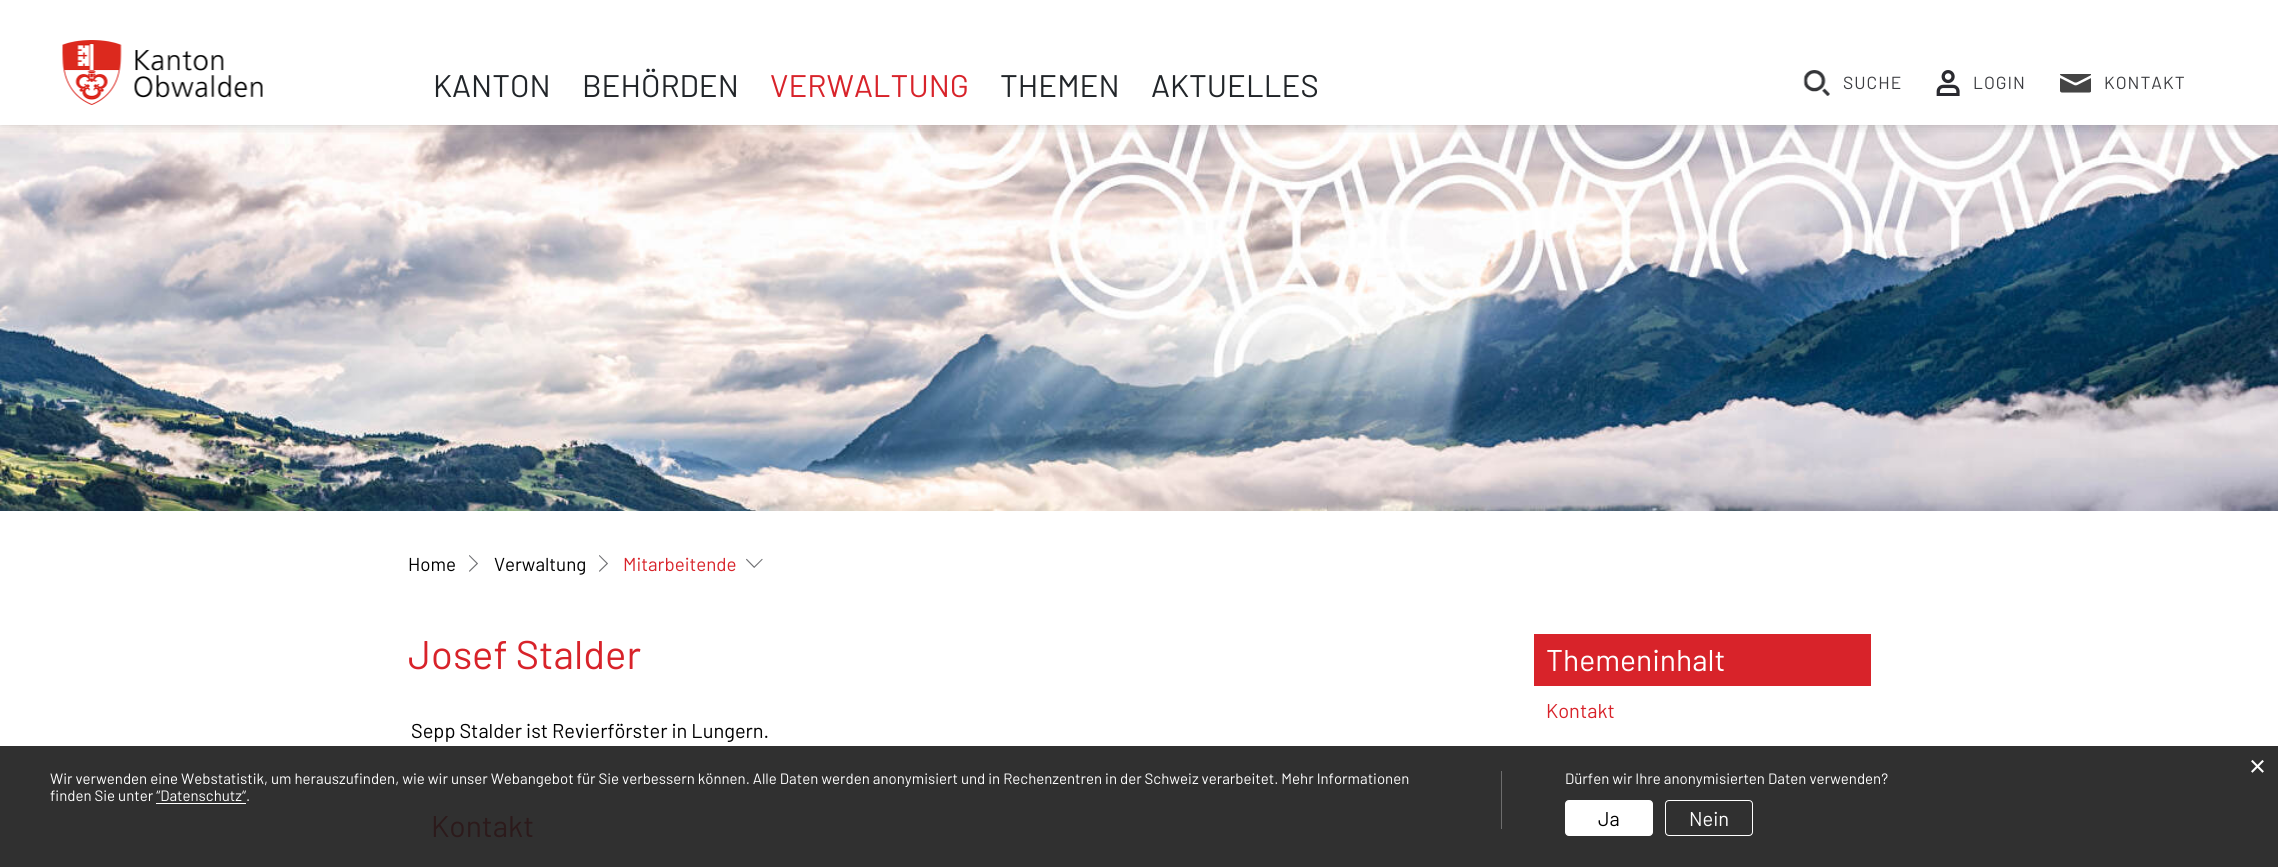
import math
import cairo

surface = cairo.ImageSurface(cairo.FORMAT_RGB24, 2278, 867)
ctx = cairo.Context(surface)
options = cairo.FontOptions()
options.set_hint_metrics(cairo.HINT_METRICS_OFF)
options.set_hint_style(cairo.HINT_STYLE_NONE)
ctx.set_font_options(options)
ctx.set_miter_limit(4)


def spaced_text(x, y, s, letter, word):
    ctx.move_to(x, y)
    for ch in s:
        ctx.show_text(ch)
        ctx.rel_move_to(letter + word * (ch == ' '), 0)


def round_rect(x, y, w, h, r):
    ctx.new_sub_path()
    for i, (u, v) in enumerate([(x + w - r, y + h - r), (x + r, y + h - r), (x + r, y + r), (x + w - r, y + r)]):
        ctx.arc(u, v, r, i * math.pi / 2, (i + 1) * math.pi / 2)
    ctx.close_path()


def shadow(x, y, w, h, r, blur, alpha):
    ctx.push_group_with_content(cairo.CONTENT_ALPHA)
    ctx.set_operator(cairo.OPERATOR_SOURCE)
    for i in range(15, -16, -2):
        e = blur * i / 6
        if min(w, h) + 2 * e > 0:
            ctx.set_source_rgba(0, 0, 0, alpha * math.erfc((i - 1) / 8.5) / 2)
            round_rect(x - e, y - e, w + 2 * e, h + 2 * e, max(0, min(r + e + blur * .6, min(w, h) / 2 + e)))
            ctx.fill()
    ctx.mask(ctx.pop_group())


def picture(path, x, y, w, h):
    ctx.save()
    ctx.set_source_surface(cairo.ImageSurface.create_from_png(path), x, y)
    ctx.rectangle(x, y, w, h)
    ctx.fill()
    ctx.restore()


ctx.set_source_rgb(1, 1, 1)
ctx.paint()
ctx.set_source_rgb(0.188, 0.188, 0.188)
ctx.rectangle(0, 746, 2278, 121)
ctx.fill()
picture("img5.png", 0, 125, 2278, 386)
ctx.save()
ctx.rectangle(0, 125, 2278, 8)
ctx.clip()
ctx.set_source_rgb(0, 0, 0)
shadow(0, 0, 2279, 125, 0, 6, 0.2)
ctx.restore()
picture("img1.png", 62, 40, 201, 65)
ctx.select_font_face("Barlow")
ctx.set_font_size(31.25)
ctx.set_source_rgb(0.129, 0.145, 0.161)
ctx.move_to(433, 97)
ctx.show_text("KANTON")
ctx.move_to(582, 97)
ctx.show_text("BEHÖRDEN")
ctx.set_source_rgb(0.847, 0.137, 0.165)
ctx.move_to(770, 97)
ctx.show_text("VERWALTUNG")
ctx.set_source_rgb(0.129, 0.145, 0.161)
ctx.move_to(1000, 97)
ctx.show_text("THEMEN")
ctx.move_to(1151, 97)
ctx.show_text("AKTUELLES")
picture("img2.png", 1803, 70, 27, 26)
ctx.set_font_size(17.5)
ctx.set_source_rgb(0.235, 0.239, 0.255)
spaced_text(1843, 89, "SUCHE", 1, 0)
picture("img3.png", 1936, 70, 24, 26)
spaced_text(1973, 89, "LOGIN", 1, 0)
picture("img4.png", 2060, 74, 31, 19)
spaced_text(2104, 89, "KONTAKT", 1, 0)
ctx.set_font_size(18.75)
ctx.set_source_rgb(0, 0, 0)
ctx.move_to(408, 571)
ctx.show_text("Home")
picture("img6.png", 469, 555, 9, 17)
ctx.move_to(494, 571)
ctx.show_text("Verwaltung")
picture("img6.png", 599, 555, 9, 17)
ctx.set_source_rgb(0.847, 0.137, 0.165)
ctx.move_to(623, 571)
ctx.show_text("Mitarbeitende")
picture("img7.png", 746, 558, 17, 10)
ctx.set_font_size(40)
ctx.move_to(408, 669)
ctx.show_text("Josef Stalder")
ctx.set_font_size(20)
ctx.set_source_rgb(0, 0, 0)
ctx.move_to(411, 738)
ctx.show_text("Sepp Stalder ist Revierförster in Lungern.")
ctx.set_font_size(30)
ctx.set_source_rgb(0.173, 0.102, 0.106)
ctx.move_to(431, 837)
ctx.show_text("Kontakt")
ctx.set_source_rgb(0.847, 0.137, 0.165)
ctx.rectangle(1534, 634, 337, 52)
ctx.fill()
ctx.set_source_rgb(1, 1, 1)
ctx.move_to(1546, 671)
ctx.show_text("Themeninhalt")
ctx.set_font_size(20)
ctx.set_source_rgb(0.847, 0.137, 0.165)
ctx.move_to(1546, 718)
ctx.show_text("Kontakt")
ctx.select_font_face("Liberation Sans")
ctx.set_font_size(29)
ctx.set_source_rgb(1, 1, 1)
ctx.move_to(2249, 776)
ctx.show_text("×")
ctx.set_source_rgb(0.427, 0.427, 0.427)
ctx.rectangle(1501, 771, 1, 58)
ctx.fill()
ctx.select_font_face("Barlow")
ctx.set_font_size(15)
ctx.set_source_rgb(1, 1, 1)
ctx.move_to(50, 784)
ctx.show_text("Wir verwenden eine Webstatistik, um herauszufinden, wie wir unser Webangebot für Sie verbessern können. Alle Daten werden anonymisiert und in Rechenzentren in der Schweiz verarbeitet. Mehr Informationen")
ctx.move_to(50, 801)
ctx.show_text("finden Sie unter “Datenschutz“.")
ctx.rectangle(156, 803, 90, 1)
ctx.fill()
ctx.move_to(1565, 784)
ctx.show_text("Dürfen wir Ihre anonymisierten Daten verwenden?")
round_rect(1565.5, 800.5, 87, 35, 3.5)
ctx.fill_preserve()
ctx.set_line_width(1)
ctx.stroke()
ctx.set_font_size(20)
ctx.set_source_rgb(0, 0, 0)
ctx.move_to(1598, 826)
ctx.show_text("Ja")
round_rect(1665.5, 800.5, 87, 35, 3.5)
ctx.set_source_rgb(1, 1, 1)
ctx.stroke()
ctx.move_to(1689, 826)
ctx.show_text("Nein")
surface.write_to_png("page.png")
